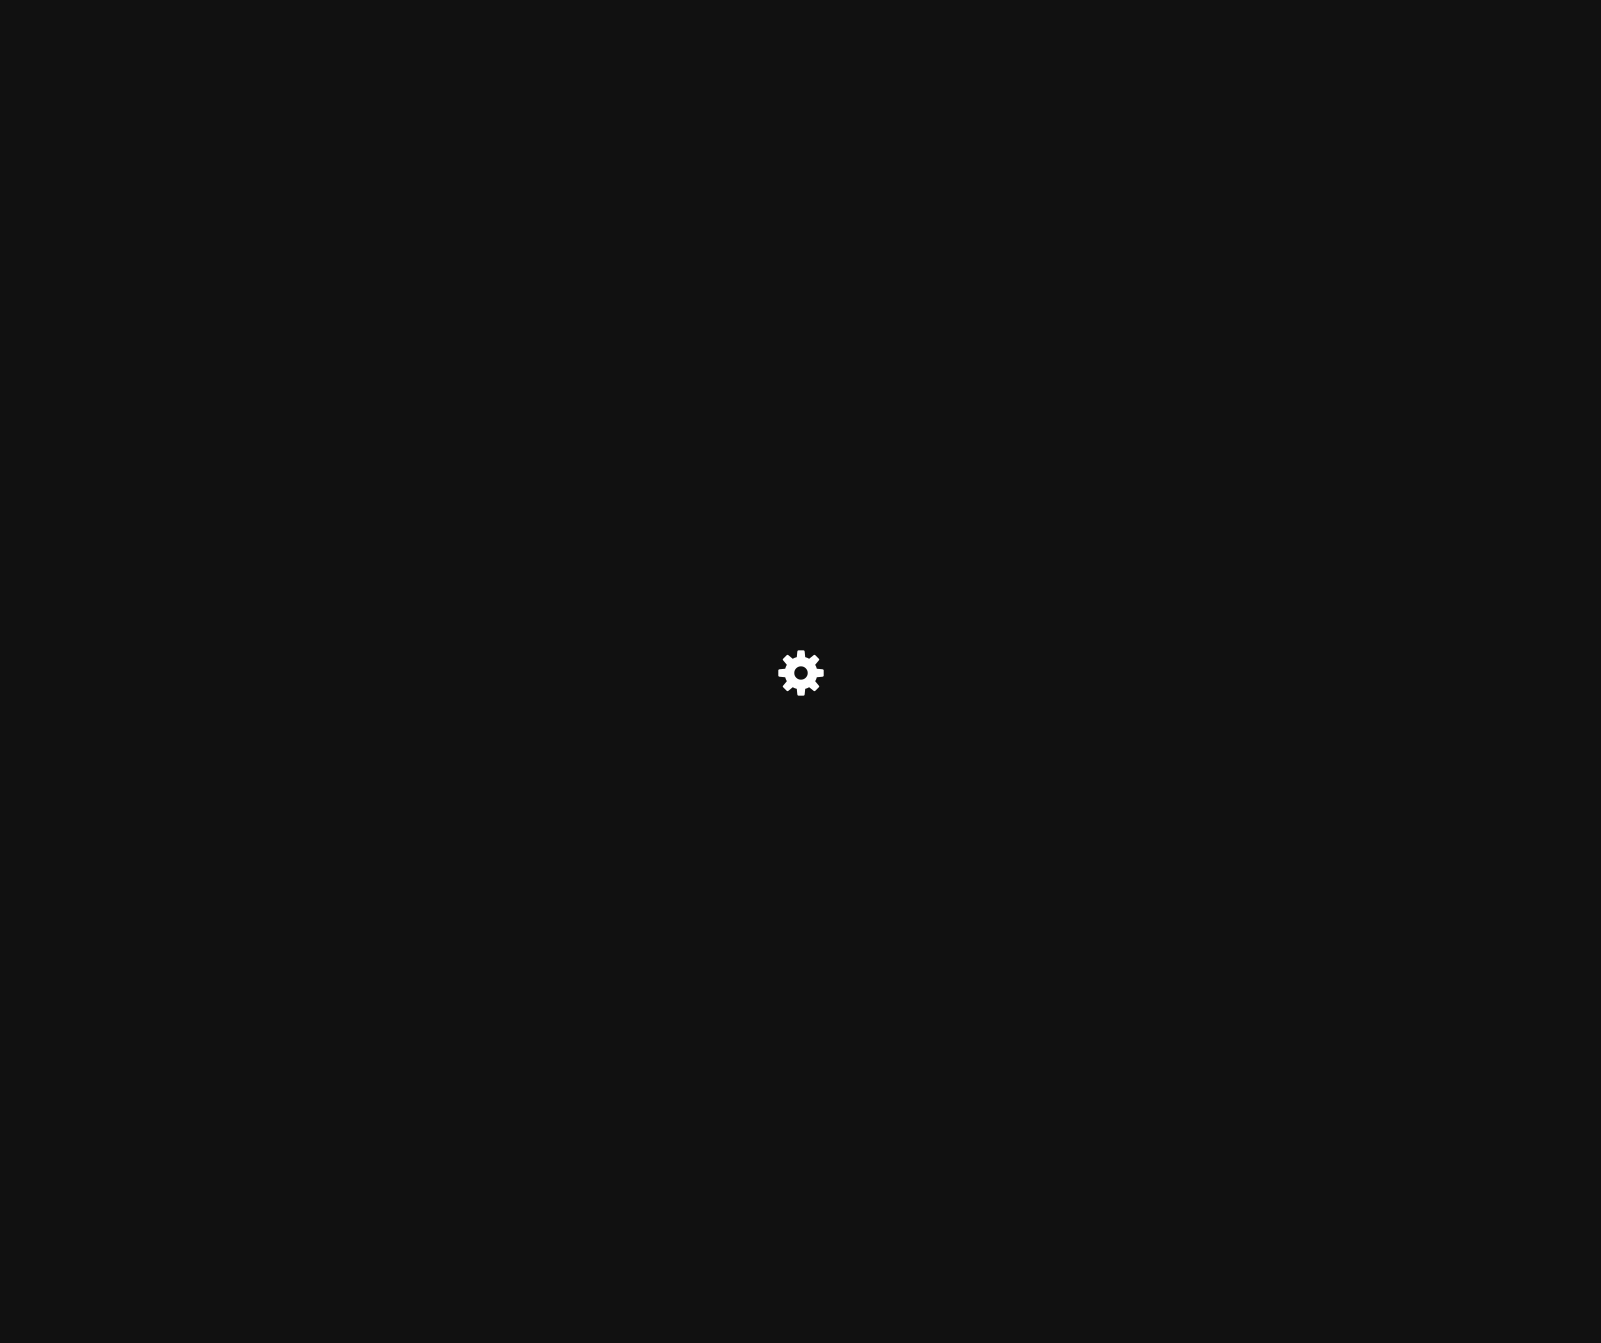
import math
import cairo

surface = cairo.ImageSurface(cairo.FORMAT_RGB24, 1601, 1343)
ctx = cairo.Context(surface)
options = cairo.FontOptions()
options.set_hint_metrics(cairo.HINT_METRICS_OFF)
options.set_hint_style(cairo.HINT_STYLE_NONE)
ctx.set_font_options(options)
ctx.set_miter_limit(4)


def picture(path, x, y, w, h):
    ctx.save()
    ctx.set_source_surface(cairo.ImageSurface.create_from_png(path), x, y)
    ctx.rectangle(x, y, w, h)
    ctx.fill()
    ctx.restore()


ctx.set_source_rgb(0.067, 0.067, 0.067)
ctx.paint()
picture("img1.png", 778, 650, 46, 46)
surface.write_to_png("page.png")
